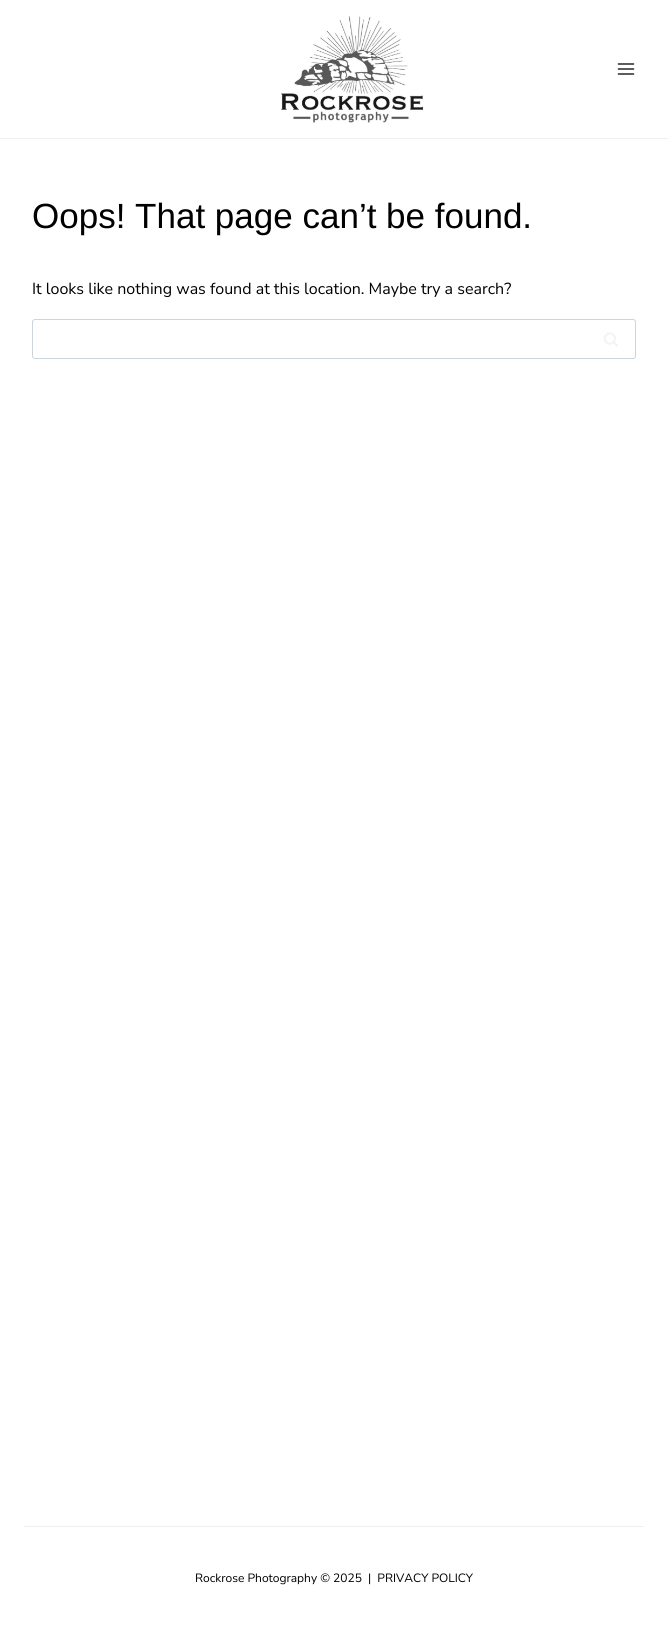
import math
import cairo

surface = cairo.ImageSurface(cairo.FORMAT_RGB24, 668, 1630)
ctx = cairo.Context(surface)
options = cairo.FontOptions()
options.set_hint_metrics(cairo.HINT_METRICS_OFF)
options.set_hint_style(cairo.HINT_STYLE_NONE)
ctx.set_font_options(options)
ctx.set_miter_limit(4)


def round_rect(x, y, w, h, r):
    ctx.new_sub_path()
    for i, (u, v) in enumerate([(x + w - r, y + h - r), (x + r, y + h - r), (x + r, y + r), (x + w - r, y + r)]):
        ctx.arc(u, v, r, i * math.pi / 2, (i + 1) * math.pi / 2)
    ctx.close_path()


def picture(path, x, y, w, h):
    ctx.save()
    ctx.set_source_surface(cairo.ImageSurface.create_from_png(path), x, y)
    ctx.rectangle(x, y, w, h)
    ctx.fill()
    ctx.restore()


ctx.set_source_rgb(1, 1, 1)
ctx.paint()
ctx.set_source_rgb(0.937, 0.937, 0.933)
ctx.rectangle(0, 138, 668, 1)
ctx.fill()
picture("img1.png", 281, 16, 143, 107)
picture("img2.png", 617, 63, 18, 12)
ctx.select_font_face("Liberation Sans")
ctx.set_font_size(35)
ctx.set_source_rgb(0, 0, 0)
ctx.move_to(32, 228)
ctx.show_text("Oops! That page can’t be found.")
ctx.select_font_face("Nunito Sans")
ctx.set_font_size(16)
ctx.move_to(32, 294)
ctx.show_text("It looks like nothing was found at this location. Maybe try a search?")
round_rect(32.5, 319.5, 603, 39, 2.5)
ctx.set_source_rgb(0.796, 0.835, 0.878)
ctx.set_line_width(1)
ctx.stroke()
picture("img3.png", 603, 332, 15, 15)
ctx.set_source_rgb(0.937, 0.937, 0.933)
ctx.rectangle(24, 1526, 620, 1)
ctx.fill()
ctx.set_font_size(12)
ctx.set_source_rgb(0, 0, 0)
ctx.move_to(195, 1582)
ctx.show_text("Rockrose Photography © 2025  |  PRIVACY POLICY")
surface.write_to_png("page.png")
